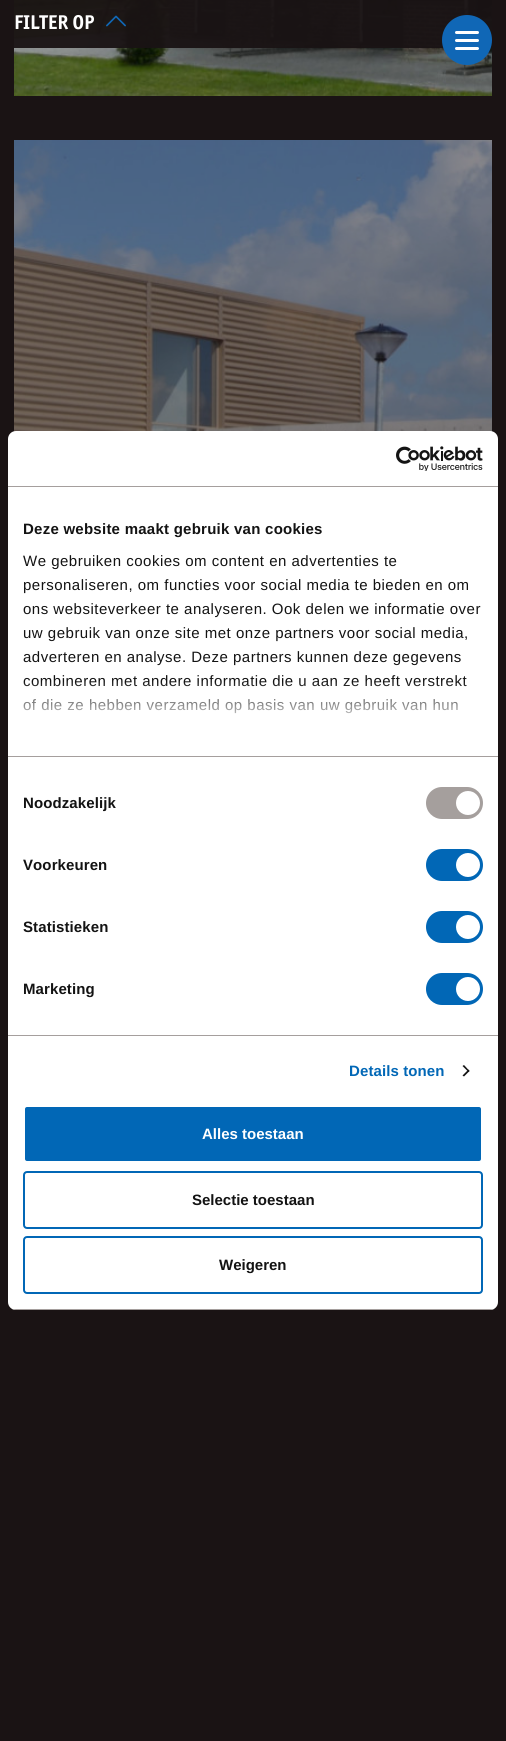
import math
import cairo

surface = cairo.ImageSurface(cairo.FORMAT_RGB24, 506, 1741)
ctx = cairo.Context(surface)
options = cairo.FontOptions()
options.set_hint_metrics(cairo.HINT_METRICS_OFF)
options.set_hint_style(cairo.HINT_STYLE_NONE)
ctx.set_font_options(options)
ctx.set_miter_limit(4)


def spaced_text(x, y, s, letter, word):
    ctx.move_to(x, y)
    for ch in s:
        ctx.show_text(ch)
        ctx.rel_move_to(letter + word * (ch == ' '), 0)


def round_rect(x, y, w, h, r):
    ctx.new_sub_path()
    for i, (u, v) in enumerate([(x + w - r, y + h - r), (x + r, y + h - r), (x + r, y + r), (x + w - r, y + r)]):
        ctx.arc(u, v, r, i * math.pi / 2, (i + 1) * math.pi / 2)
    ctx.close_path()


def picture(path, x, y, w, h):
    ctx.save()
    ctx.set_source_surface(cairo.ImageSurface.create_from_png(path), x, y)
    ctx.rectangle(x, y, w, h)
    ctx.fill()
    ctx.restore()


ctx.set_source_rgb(0.102, 0.078, 0.082)
ctx.paint()
picture("img1.png", 14, 0, 478, 96)
picture("img2.png", 14, 140, 478, 292)
ctx.set_source_rgba(0.102, 0.078, 0.082, 0.95)
ctx.rectangle(14, 0, 478, 48)
ctx.fill()
ctx.select_font_face("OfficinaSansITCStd", cairo.FONT_SLANT_NORMAL, cairo.FONT_WEIGHT_BOLD)
ctx.set_font_size(20)
ctx.set_source_rgb(1, 1, 1)
ctx.move_to(14, 29)
ctx.show_text("FILTER OP")
picture("img3.png", 106, 15, 20, 12)
ctx.set_source_rgb(0.063, 0.404, 0.714)
ctx.arc(467, 40, 25, 0, 2 * math.pi)
ctx.fill()
ctx.set_source_rgb(1, 1, 1)
round_rect(455, 39, 24, 3, 1.5)
ctx.fill()
round_rect(455, 31, 24, 3, 1.5)
ctx.fill()
round_rect(455, 47, 24, 3, 1.5)
ctx.fill()
round_rect(8, 431, 490, 879, 8)
ctx.fill()
ctx.set_source_rgb(0.647, 0.624, 0.616)
ctx.rectangle(8, 486, 490, 1)
ctx.fill()
picture("img4.png", 396, 446, 87, 25)
ctx.rectangle(8, 756, 490, 1)
ctx.fill()
ctx.select_font_face("Liberation Sans", cairo.FONT_SLANT_NORMAL, cairo.FONT_WEIGHT_BOLD)
ctx.set_font_size(15)
ctx.set_source_rgb(0.078, 0.078, 0.078)
spaced_text(23, 534, "Deze website maakt gebruik van cookies", 0.25, 0)
ctx.select_font_face("Liberation Sans")
spaced_text(23, 566, "We gebruiken cookies om content en advertenties te", 0.5, 0)
spaced_text(23, 590, "personaliseren, om functies voor social media te bieden en om", 0.5, 0)
spaced_text(23, 614, "ons websiteverkeer te analyseren. Ook delen we informatie over", 0.5, 0)
spaced_text(23, 638, "uw gebruik van onze site met onze partners voor social media,", 0.5, 0)
spaced_text(23, 662, "adverteren en analyse. Deze partners kunnen deze gegevens", 0.5, 0)
spaced_text(23, 686, "combineren met andere informatie die u aan ze heeft verstrekt", 0.5, 0)
spaced_text(23, 710, "of die ze hebben verzameld op basis van uw gebruik van hun", 0.5, 0)
gradient = cairo.LinearGradient(247, 756, 247, 681)
gradient.add_color_stop_rgba(0, 1, 1, 1, 1)
gradient.add_color_stop_rgba(0.5, 1, 1, 1, 0.8)
gradient.add_color_stop_rgba(1, 1, 1, 1, 0)
ctx.set_source(gradient)
ctx.rectangle(23, 682, 444, 32)
ctx.fill()
ctx.set_source_rgb(0.647, 0.624, 0.616)
ctx.rectangle(8, 1035, 490, 1)
ctx.fill()
ctx.select_font_face("Liberation Sans", cairo.FONT_SLANT_NORMAL, cairo.FONT_WEIGHT_BOLD)
ctx.set_source_rgb(0.078, 0.078, 0.078)
spaced_text(23, 808, "Noodzakelijk", 0.1, 0)
ctx.set_source_rgb(0.647, 0.624, 0.616)
round_rect(426, 787, 57, 32, 16)
ctx.fill()
ctx.set_source_rgb(1, 1, 1)
ctx.arc(468, 803, 12, 0, 2 * math.pi)
ctx.fill()
ctx.set_source_rgb(0.078, 0.078, 0.078)
spaced_text(23, 870, "Voorkeuren", 0.1, 0)
ctx.set_source_rgb(0.004, 0.404, 0.714)
round_rect(426, 849, 57, 32, 16)
ctx.fill()
ctx.set_source_rgb(1, 1, 1)
ctx.arc(468, 865, 12, 0, 2 * math.pi)
ctx.fill()
ctx.set_source_rgb(0.078, 0.078, 0.078)
spaced_text(23, 932, "Statistieken", 0.1, 0)
ctx.set_source_rgb(0.004, 0.404, 0.714)
round_rect(426, 911, 57, 32, 16)
ctx.fill()
ctx.set_source_rgb(1, 1, 1)
ctx.arc(468, 927, 12, 0, 2 * math.pi)
ctx.fill()
ctx.set_source_rgb(0.078, 0.078, 0.078)
spaced_text(23, 994, "Marketing", 0.1, 0)
ctx.set_source_rgb(0.004, 0.404, 0.714)
round_rect(426, 973, 57, 32, 16)
ctx.fill()
ctx.set_source_rgb(1, 1, 1)
ctx.arc(468, 989, 12, 0, 2 * math.pi)
ctx.fill()
ctx.set_source_rgb(0.004, 0.404, 0.714)
spaced_text(349, 1076, "Details tonen", 0.1, 0)
ctx.set_source_rgb(0.078, 0.078, 0.078)
ctx.new_path()
ctx.move_to(464, 1065)
ctx.line_to(469.5, 1071)
ctx.line_to(468.5, 1072)
ctx.line_to(462.5, 1066)
ctx.close_path()
ctx.fill()
ctx.new_path()
ctx.move_to(468.5, 1069.5)
ctx.line_to(469.5, 1071)
ctx.line_to(464, 1076.5)
ctx.line_to(462.5, 1075.5)
ctx.close_path()
ctx.fill()
ctx.save()
round_rect(8, 431, 490, 879, 8)
ctx.clip()
ctx.set_source_rgb(0.647, 0.624, 0.616)
ctx.rectangle(8, 1309, 490, 1)
ctx.fill()
ctx.restore()
ctx.set_source_rgb(0.004, 0.404, 0.714)
round_rect(24, 1106, 458, 56, 3)
ctx.fill_preserve()
ctx.set_source_rgb(1, 1, 1)
ctx.stroke()
ctx.move_to(202, 1139)
ctx.show_text("Alles toestaan")
round_rect(24, 1172, 458, 56, 3)
ctx.set_source_rgb(0.004, 0.404, 0.714)
ctx.stroke()
ctx.set_source_rgb(0.078, 0.078, 0.078)
ctx.move_to(192, 1205)
ctx.show_text("Selectie toestaan")
round_rect(24, 1237, 458, 56, 3)
ctx.set_source_rgb(0.004, 0.404, 0.714)
ctx.stroke()
ctx.set_source_rgb(0.078, 0.078, 0.078)
ctx.move_to(219, 1270)
ctx.show_text("Weigeren")
surface.write_to_png("page.png")
